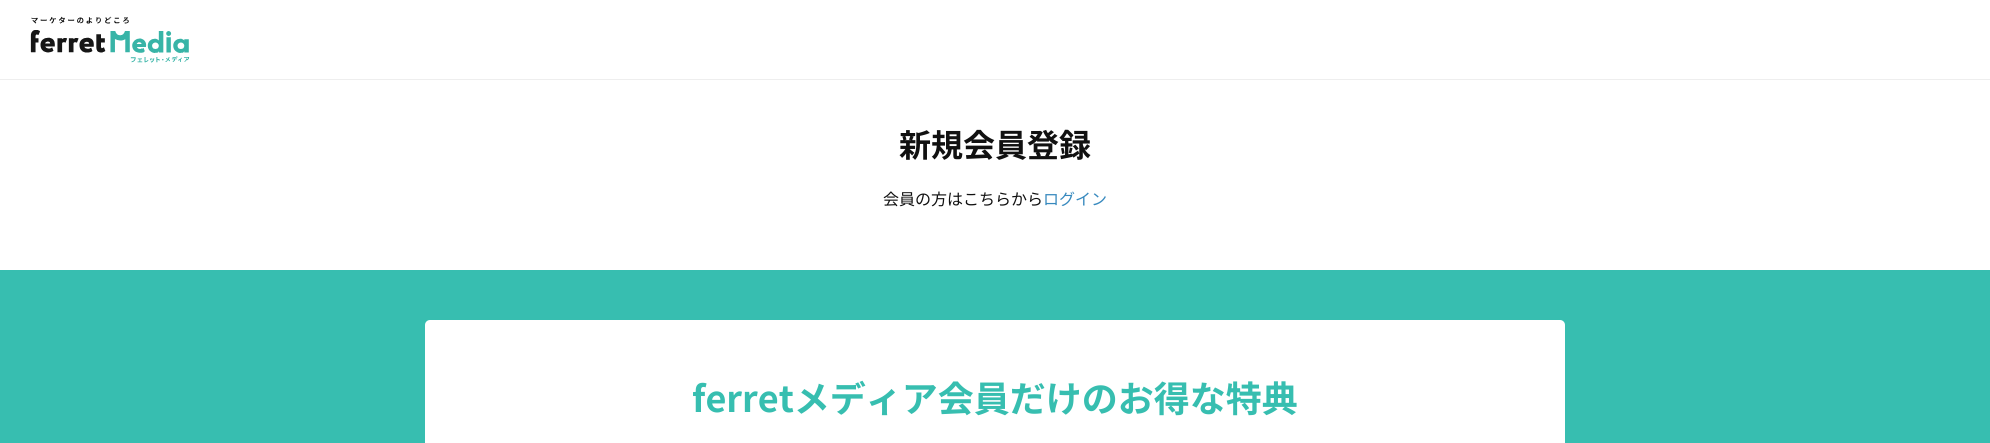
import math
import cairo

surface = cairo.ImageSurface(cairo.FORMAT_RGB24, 1990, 443)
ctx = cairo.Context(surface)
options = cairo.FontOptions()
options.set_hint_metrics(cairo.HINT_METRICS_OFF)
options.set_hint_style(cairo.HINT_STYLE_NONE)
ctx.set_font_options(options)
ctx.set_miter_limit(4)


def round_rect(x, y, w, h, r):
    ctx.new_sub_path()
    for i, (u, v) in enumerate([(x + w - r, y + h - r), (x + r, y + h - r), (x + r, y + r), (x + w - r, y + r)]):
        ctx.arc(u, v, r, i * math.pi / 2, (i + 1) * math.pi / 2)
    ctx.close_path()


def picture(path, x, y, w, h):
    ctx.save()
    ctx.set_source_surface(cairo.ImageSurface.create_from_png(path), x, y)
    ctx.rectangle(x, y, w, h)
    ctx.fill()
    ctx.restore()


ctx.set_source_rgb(1, 1, 1)
ctx.paint()
ctx.set_source_rgb(0.933, 0.933, 0.933)
ctx.rectangle(0, 79, 1990, 1)
ctx.fill()
picture("img1.png", 30, 16, 160, 47)
ctx.select_font_face("Noto Sans JP", cairo.FONT_SLANT_NORMAL, cairo.FONT_WEIGHT_BOLD)
ctx.set_font_size(32)
ctx.set_source_rgb(0.067, 0.067, 0.067)
ctx.move_to(899, 157)
ctx.show_text("新規会員登録")
ctx.select_font_face("Noto Sans JP")
ctx.set_font_size(16)
ctx.move_to(883, 205)
ctx.show_text("会員の方はこちらから")
ctx.set_source_rgb(0.216, 0.537, 0.745)
ctx.move_to(1043, 205)
ctx.show_text("ログイン")
ctx.set_source_rgb(0.216, 0.745, 0.69)
ctx.rectangle(0, 270, 1990, 173)
ctx.fill()
ctx.set_source_rgb(1, 1, 1)
round_rect(425, 320, 1140, 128, 5)
ctx.fill()
ctx.select_font_face("Noto Sans JP", cairo.FONT_SLANT_NORMAL, cairo.FONT_WEIGHT_BOLD)
ctx.set_font_size(36)
ctx.set_source_rgb(0.216, 0.745, 0.69)
ctx.move_to(692, 412)
ctx.show_text("ferretメディア会員だけのお得な特典")
surface.write_to_png("page.png")
